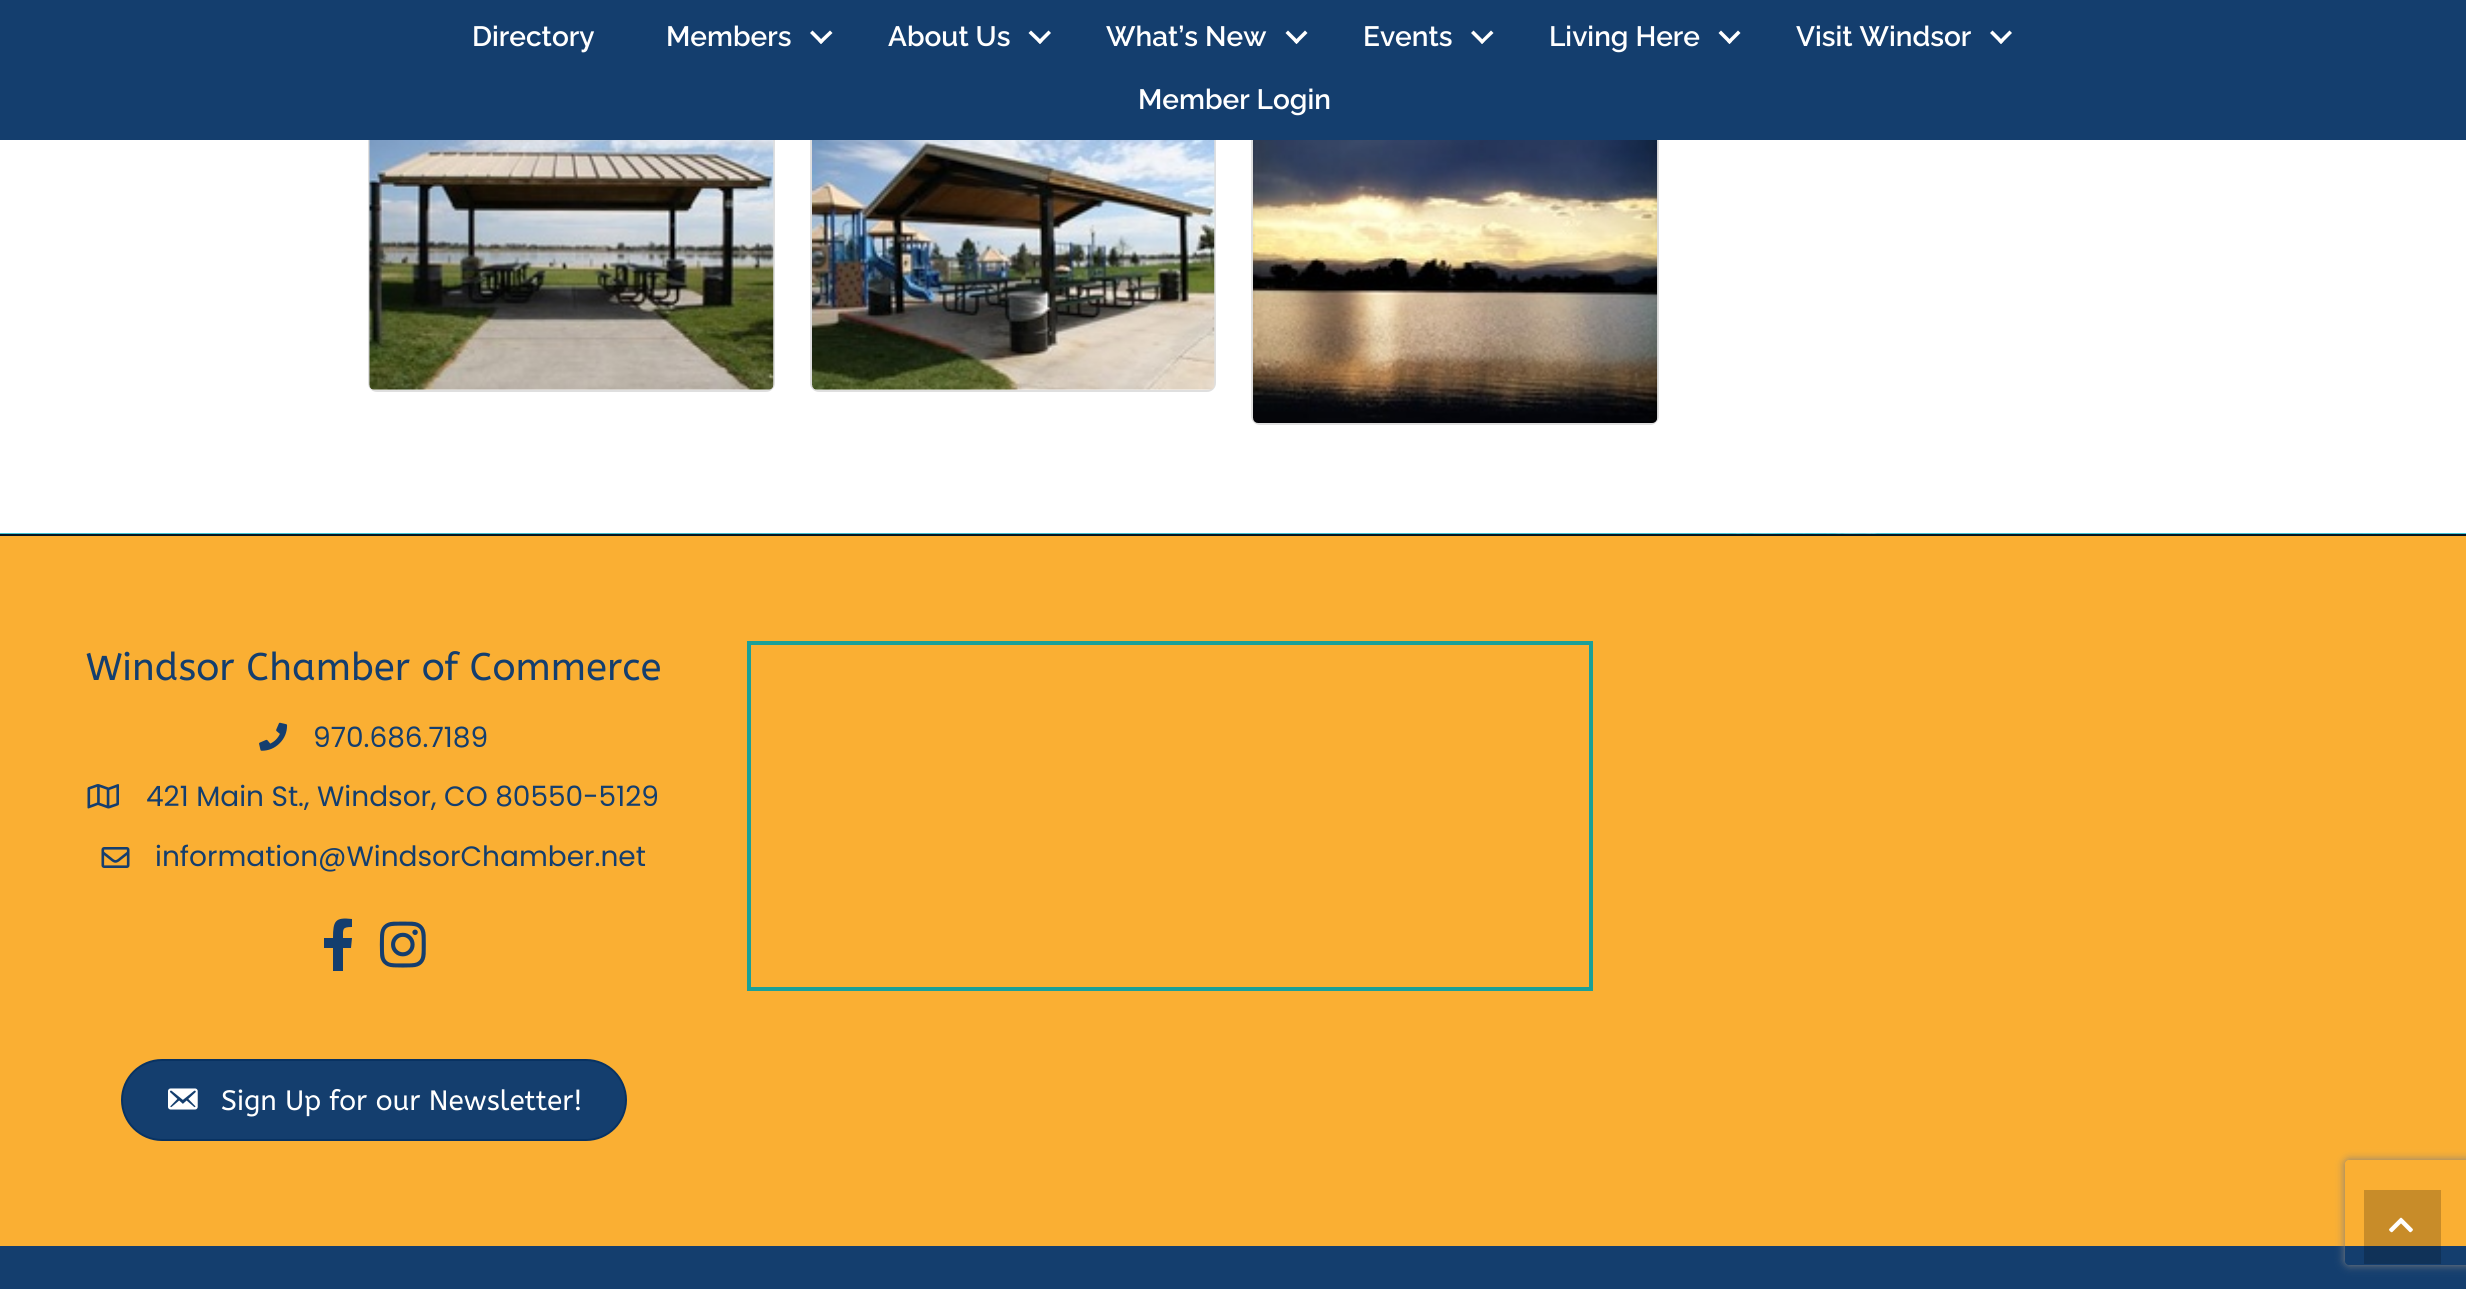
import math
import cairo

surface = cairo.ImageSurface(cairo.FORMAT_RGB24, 2466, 1289)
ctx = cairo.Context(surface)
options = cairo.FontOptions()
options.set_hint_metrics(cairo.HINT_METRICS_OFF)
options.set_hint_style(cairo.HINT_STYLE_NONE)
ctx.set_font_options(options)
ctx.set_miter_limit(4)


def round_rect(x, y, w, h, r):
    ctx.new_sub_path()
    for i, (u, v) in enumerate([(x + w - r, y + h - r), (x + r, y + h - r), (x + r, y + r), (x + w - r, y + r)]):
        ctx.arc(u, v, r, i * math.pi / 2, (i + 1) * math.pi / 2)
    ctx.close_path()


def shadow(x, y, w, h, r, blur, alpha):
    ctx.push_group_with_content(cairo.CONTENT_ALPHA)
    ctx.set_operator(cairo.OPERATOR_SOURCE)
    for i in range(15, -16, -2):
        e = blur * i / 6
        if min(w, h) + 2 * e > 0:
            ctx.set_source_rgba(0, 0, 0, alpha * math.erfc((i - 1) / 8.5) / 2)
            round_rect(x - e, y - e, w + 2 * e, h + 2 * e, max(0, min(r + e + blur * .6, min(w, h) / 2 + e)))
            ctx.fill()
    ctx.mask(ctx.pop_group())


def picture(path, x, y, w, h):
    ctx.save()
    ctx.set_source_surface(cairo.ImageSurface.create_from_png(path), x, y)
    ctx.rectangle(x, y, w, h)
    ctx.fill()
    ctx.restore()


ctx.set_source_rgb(1, 1, 1)
ctx.paint()
round_rect(369, 122, 405, 269, 8)
ctx.set_source_rgb(0.875, 0.875, 0.875)
ctx.stroke()
round_rect(811, 122, 404, 269, 8)
ctx.stroke()
round_rect(1252, 122, 406, 302, 8)
ctx.stroke()
ctx.set_source_rgb(0.082, 0.243, 0.431)
ctx.rectangle(0, 0, 2466, 140)
ctx.fill()
ctx.select_font_face("Raleway Thin")
ctx.set_font_size(28)
ctx.set_source_rgb(1, 1, 1)
ctx.move_to(472, 46)
ctx.show_text("Directory")
ctx.move_to(666, 46)
ctx.show_text("Members")
ctx.new_path()
ctx.move_to(830, 30.5)
ctx.line_to(832.5, 33)
ctx.line_to(821, 44)
ctx.line_to(818.5, 41.5)
ctx.close_path()
ctx.fill()
ctx.new_path()
ctx.move_to(812.5, 30.5)
ctx.line_to(823.5, 41.5)
ctx.line_to(821, 44)
ctx.line_to(810, 33)
ctx.close_path()
ctx.fill()
ctx.move_to(888, 46)
ctx.show_text("About Us")
ctx.new_path()
ctx.move_to(1048.5, 30.5)
ctx.line_to(1051, 33)
ctx.line_to(1040, 44)
ctx.line_to(1037.5, 41.5)
ctx.close_path()
ctx.fill()
ctx.new_path()
ctx.move_to(1031, 30.5)
ctx.line_to(1042.5, 41.5)
ctx.line_to(1040, 44)
ctx.line_to(1028.5, 33)
ctx.close_path()
ctx.fill()
ctx.move_to(1106, 46)
ctx.show_text("What’s New")
ctx.new_path()
ctx.move_to(1305, 30.5)
ctx.line_to(1307.5, 33)
ctx.line_to(1296.5, 44)
ctx.line_to(1294, 41.5)
ctx.close_path()
ctx.fill()
ctx.new_path()
ctx.move_to(1288, 30.5)
ctx.line_to(1299, 41.5)
ctx.line_to(1296.5, 44)
ctx.line_to(1285.5, 33)
ctx.close_path()
ctx.fill()
ctx.move_to(1363, 46)
ctx.show_text("Events")
ctx.new_path()
ctx.move_to(1491, 30.5)
ctx.line_to(1493.5, 33)
ctx.line_to(1482, 44)
ctx.line_to(1480, 41.5)
ctx.close_path()
ctx.fill()
ctx.new_path()
ctx.move_to(1473.5, 30.5)
ctx.line_to(1484.5, 41.5)
ctx.line_to(1482, 44)
ctx.line_to(1471, 33)
ctx.close_path()
ctx.fill()
ctx.move_to(1549, 46)
ctx.show_text("Living Here")
ctx.new_path()
ctx.move_to(1738, 30.5)
ctx.line_to(1740.5, 33)
ctx.line_to(1729.5, 44)
ctx.line_to(1727, 41.5)
ctx.close_path()
ctx.fill()
ctx.new_path()
ctx.move_to(1721, 30.5)
ctx.line_to(1732, 41.5)
ctx.line_to(1729.5, 44)
ctx.line_to(1718.5, 33)
ctx.close_path()
ctx.fill()
ctx.move_to(1796, 46)
ctx.show_text("Visit Windsor")
ctx.new_path()
ctx.move_to(2009.5, 30.5)
ctx.line_to(2012, 33)
ctx.line_to(2001, 44)
ctx.line_to(1998.5, 41.5)
ctx.close_path()
ctx.fill()
ctx.new_path()
ctx.move_to(1992.5, 30.5)
ctx.line_to(2003.5, 41.5)
ctx.line_to(2001, 44)
ctx.line_to(1990, 33)
ctx.close_path()
ctx.fill()
ctx.move_to(1138, 109)
ctx.show_text("Member Login")
picture("img1.png", 369, 140, 405, 250)
picture("img2.png", 812, 140, 403, 250)
picture("img3.png", 1253, 140, 405, 283)
picture("img4.png", 0, 533, 2466, 1)
ctx.set_source_rgb(0.02, 0.086, 0.133)
ctx.rectangle(0, 534, 2466, 2)
ctx.fill()
ctx.set_source_rgb(0.98, 0.686, 0.2)
ctx.rectangle(0, 536, 2466, 710)
ctx.fill()
ctx.select_font_face("ABeeZee")
ctx.set_font_size(38.5)
ctx.set_source_rgb(0.082, 0.243, 0.431)
ctx.move_to(86, 680)
ctx.show_text("Windsor Chamber of Commerce")
picture("img5.png", 259, 722, 29, 29)
ctx.select_font_face("Poppins")
ctx.set_font_size(28)
ctx.move_to(313, 747)
ctx.show_text("970.686.7189")
picture("img6.png", 87, 784, 32, 25)
ctx.move_to(146, 806)
ctx.show_text("421 Main St., Windsor, CO 80550-5129")
picture("img7.png", 101, 847, 29, 21)
ctx.move_to(155, 866)
ctx.show_text("information@WindsorChamber.net")
ctx.new_path()
ctx.move_to(351, 948)
ctx.line_to(343, 948)
ctx.line_to(343, 971)
ctx.line_to(333, 971)
ctx.line_to(333, 948)
ctx.line_to(324, 948)
ctx.line_to(324, 938)
ctx.line_to(333, 938)
ctx.curve_to(333, 921, 335, 917, 352, 919)
ctx.line_to(352, 927)
ctx.curve_to(342, 927, 343, 929, 343, 938)
ctx.line_to(352, 938)
ctx.close_path()
ctx.fill()
picture("img8.png", 379, 921, 47, 47)
round_rect(122, 1060, 504, 80, 40)
ctx.fill_preserve()
ctx.set_source_rgb(0.035, 0.196, 0.384)
ctx.stroke()
picture("img9.png", 168, 1088, 30, 22)
ctx.select_font_face("ABeeZee")
ctx.set_source_rgb(1, 1, 1)
ctx.move_to(221, 1110)
ctx.show_text("Sign Up for our Newsletter!")
ctx.rectangle(749, 643, 842, 346)
ctx.set_source_rgb(0.106, 0.627, 0.596)
ctx.set_line_width(4)
ctx.stroke()
ctx.set_source_rgb(0.082, 0.243, 0.431)
ctx.rectangle(0, 1246, 2466, 43)
ctx.fill()
ctx.save()
ctx.set_fill_rule(cairo.FILL_RULE_EVEN_ODD)
ctx.new_path()
ctx.move_to(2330, 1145)
ctx.line_to(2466, 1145)
ctx.line_to(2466, 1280)
ctx.line_to(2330, 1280)
ctx.close_path()
ctx.move_to(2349, 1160)
ctx.line_to(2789, 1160)
ctx.curve_to(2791, 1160, 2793, 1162, 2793, 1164)
ctx.line_to(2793, 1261)
ctx.curve_to(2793, 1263, 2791, 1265, 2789, 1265)
ctx.line_to(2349, 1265)
ctx.curve_to(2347, 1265, 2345, 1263, 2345, 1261)
ctx.line_to(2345, 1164)
ctx.curve_to(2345, 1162, 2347, 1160, 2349, 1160)
ctx.close_path()
ctx.clip()
ctx.set_source_rgb(0.502, 0.502, 0.502)
shadow(2345, 1160, 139, 105, 4, 4.5, 1)
ctx.restore()
ctx.set_source_rgba(0, 0, 0, 0.2)
ctx.rectangle(2364, 1190, 77, 74)
ctx.fill()
picture("img10.png", 2389, 1217, 24, 16)
surface.write_to_png("page.png")
